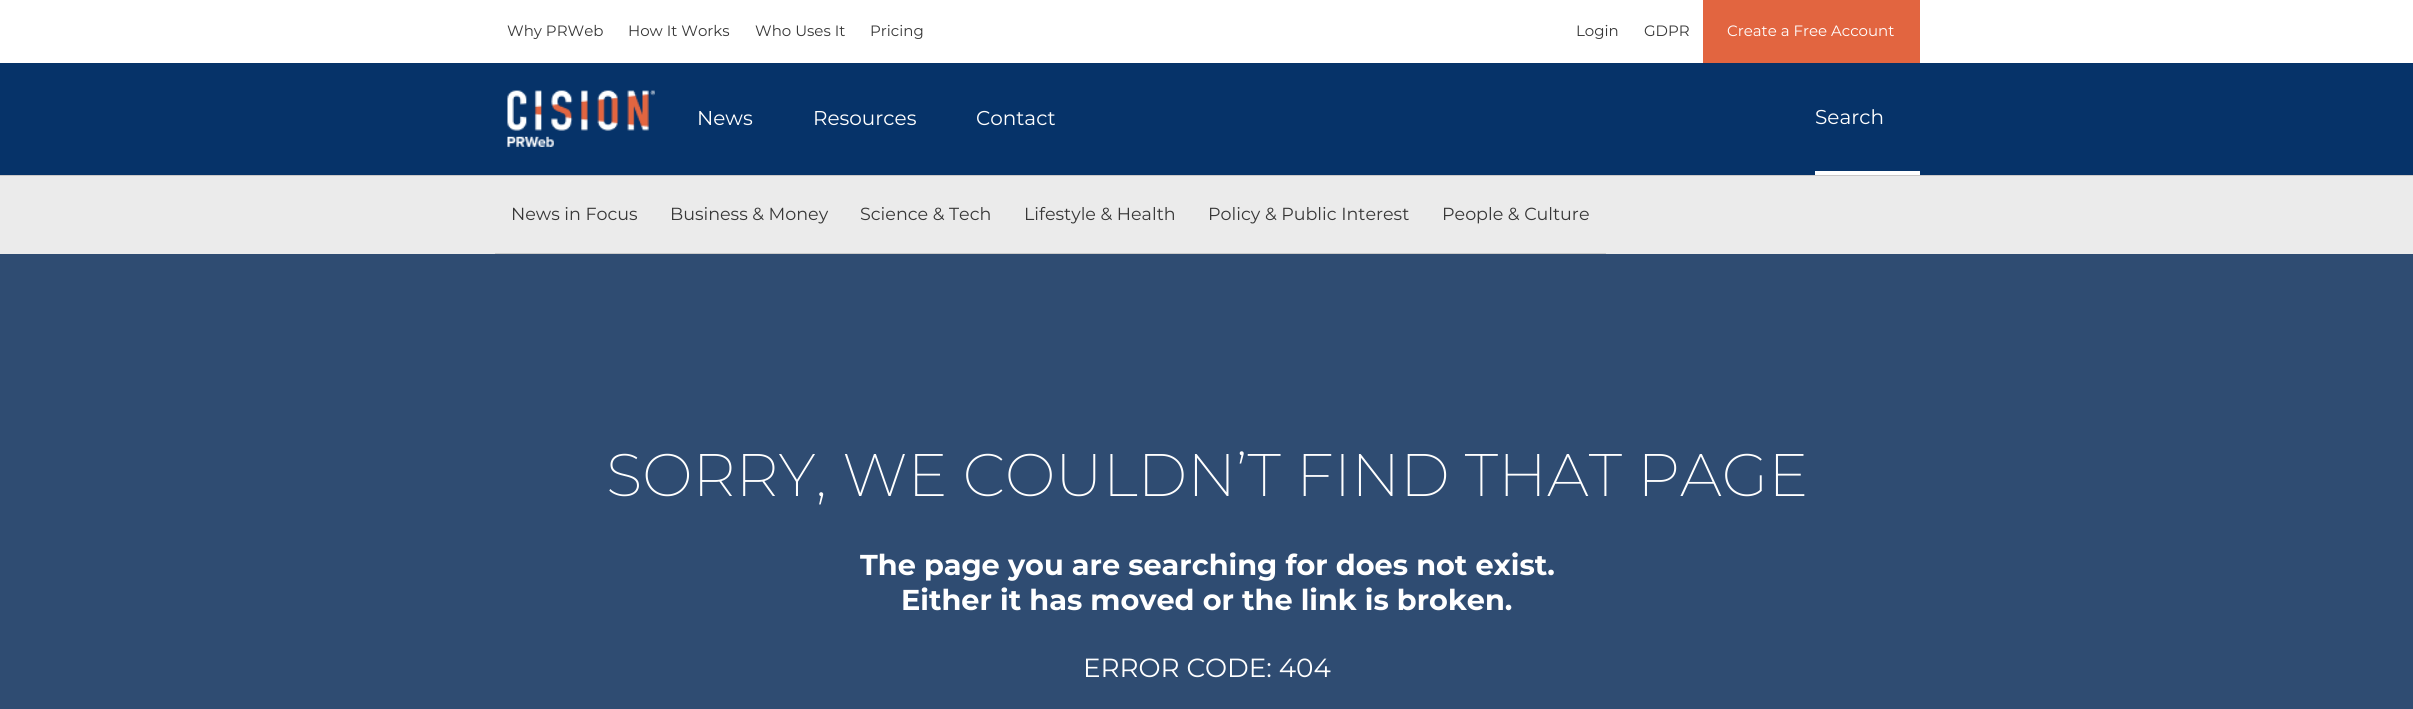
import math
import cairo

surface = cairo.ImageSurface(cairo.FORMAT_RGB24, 2413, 709)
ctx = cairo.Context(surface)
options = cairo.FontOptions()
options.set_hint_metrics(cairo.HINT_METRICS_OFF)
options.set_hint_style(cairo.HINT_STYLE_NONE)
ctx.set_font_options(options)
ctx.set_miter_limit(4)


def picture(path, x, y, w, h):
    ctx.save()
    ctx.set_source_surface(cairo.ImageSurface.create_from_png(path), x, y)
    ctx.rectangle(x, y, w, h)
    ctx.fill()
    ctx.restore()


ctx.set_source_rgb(1, 1, 1)
ctx.paint()
ctx.select_font_face("Montserrat")
ctx.set_font_size(15)
ctx.set_source_rgb(0.216, 0.216, 0.216)
ctx.move_to(507, 36)
ctx.show_text("Why PRWeb")
ctx.move_to(628, 36)
ctx.show_text("How It Works")
ctx.move_to(755, 36)
ctx.show_text("Who Uses It")
ctx.move_to(870, 36)
ctx.show_text("Pricing")
ctx.move_to(1576, 36)
ctx.show_text("Login")
ctx.move_to(1644, 36)
ctx.show_text("GDPR")
ctx.set_source_rgb(0.886, 0.396, 0.251)
ctx.rectangle(1703, 0, 217, 63)
ctx.fill()
ctx.set_source_rgb(1, 1, 1)
ctx.move_to(1727, 36)
ctx.show_text("Create a Free Account")
ctx.set_source_rgb(0.024, 0.2, 0.412)
ctx.rectangle(0, 63, 2413, 112)
ctx.fill()
ctx.set_source_rgb(0.792, 0.784, 0.784)
ctx.rectangle(0, 175, 2413, 1)
ctx.fill()
picture("img1.png", 507, 90, 148, 57)
ctx.set_font_size(20)
ctx.set_source_rgb(1, 1, 1)
ctx.move_to(697, 125)
ctx.show_text("News")
ctx.move_to(813, 125)
ctx.show_text("Resources")
ctx.move_to(976, 125)
ctx.show_text("Contact")
ctx.rectangle(1815, 171, 105, 4)
ctx.fill()
ctx.move_to(1815, 124)
ctx.show_text("Search")
ctx.set_source_rgb(0.918, 0.918, 0.918)
ctx.rectangle(0, 176, 2413, 78)
ctx.fill()
ctx.set_source_rgb(0.8, 0.8, 0.8)
ctx.rectangle(495, 253, 1111, 1)
ctx.fill()
ctx.set_font_size(17.5)
ctx.set_source_rgb(0.216, 0.216, 0.216)
ctx.move_to(511, 220)
ctx.show_text("News in Focus")
ctx.move_to(670, 220)
ctx.show_text("Business & Money")
ctx.move_to(860, 220)
ctx.show_text("Science & Tech")
ctx.move_to(1024, 220)
ctx.show_text("Lifestyle & Health")
ctx.move_to(1208, 220)
ctx.show_text("Policy & Public Interest")
ctx.move_to(1442, 220)
ctx.show_text("People & Culture")
ctx.set_source_rgb(0.184, 0.298, 0.447)
ctx.rectangle(0, 254, 2413, 455)
ctx.fill()
ctx.select_font_face("Montserrat ExtraLight")
ctx.set_font_size(60)
ctx.set_source_rgb(1, 1, 1)
ctx.move_to(606, 496)
ctx.show_text("SORRY, WE COULDN’T FIND THAT PAGE")
ctx.select_font_face("Montserrat", cairo.FONT_SLANT_NORMAL, cairo.FONT_WEIGHT_BOLD)
ctx.set_font_size(28.75)
ctx.move_to(860, 575)
ctx.show_text("The page you are searching for does not exist.")
ctx.move_to(901, 610)
ctx.show_text("Either it has moved or the link is broken.")
ctx.select_font_face("Montserrat")
ctx.set_font_size(26.25)
ctx.move_to(1083, 677)
ctx.show_text("ERROR CODE: 404")
surface.write_to_png("page.png")
